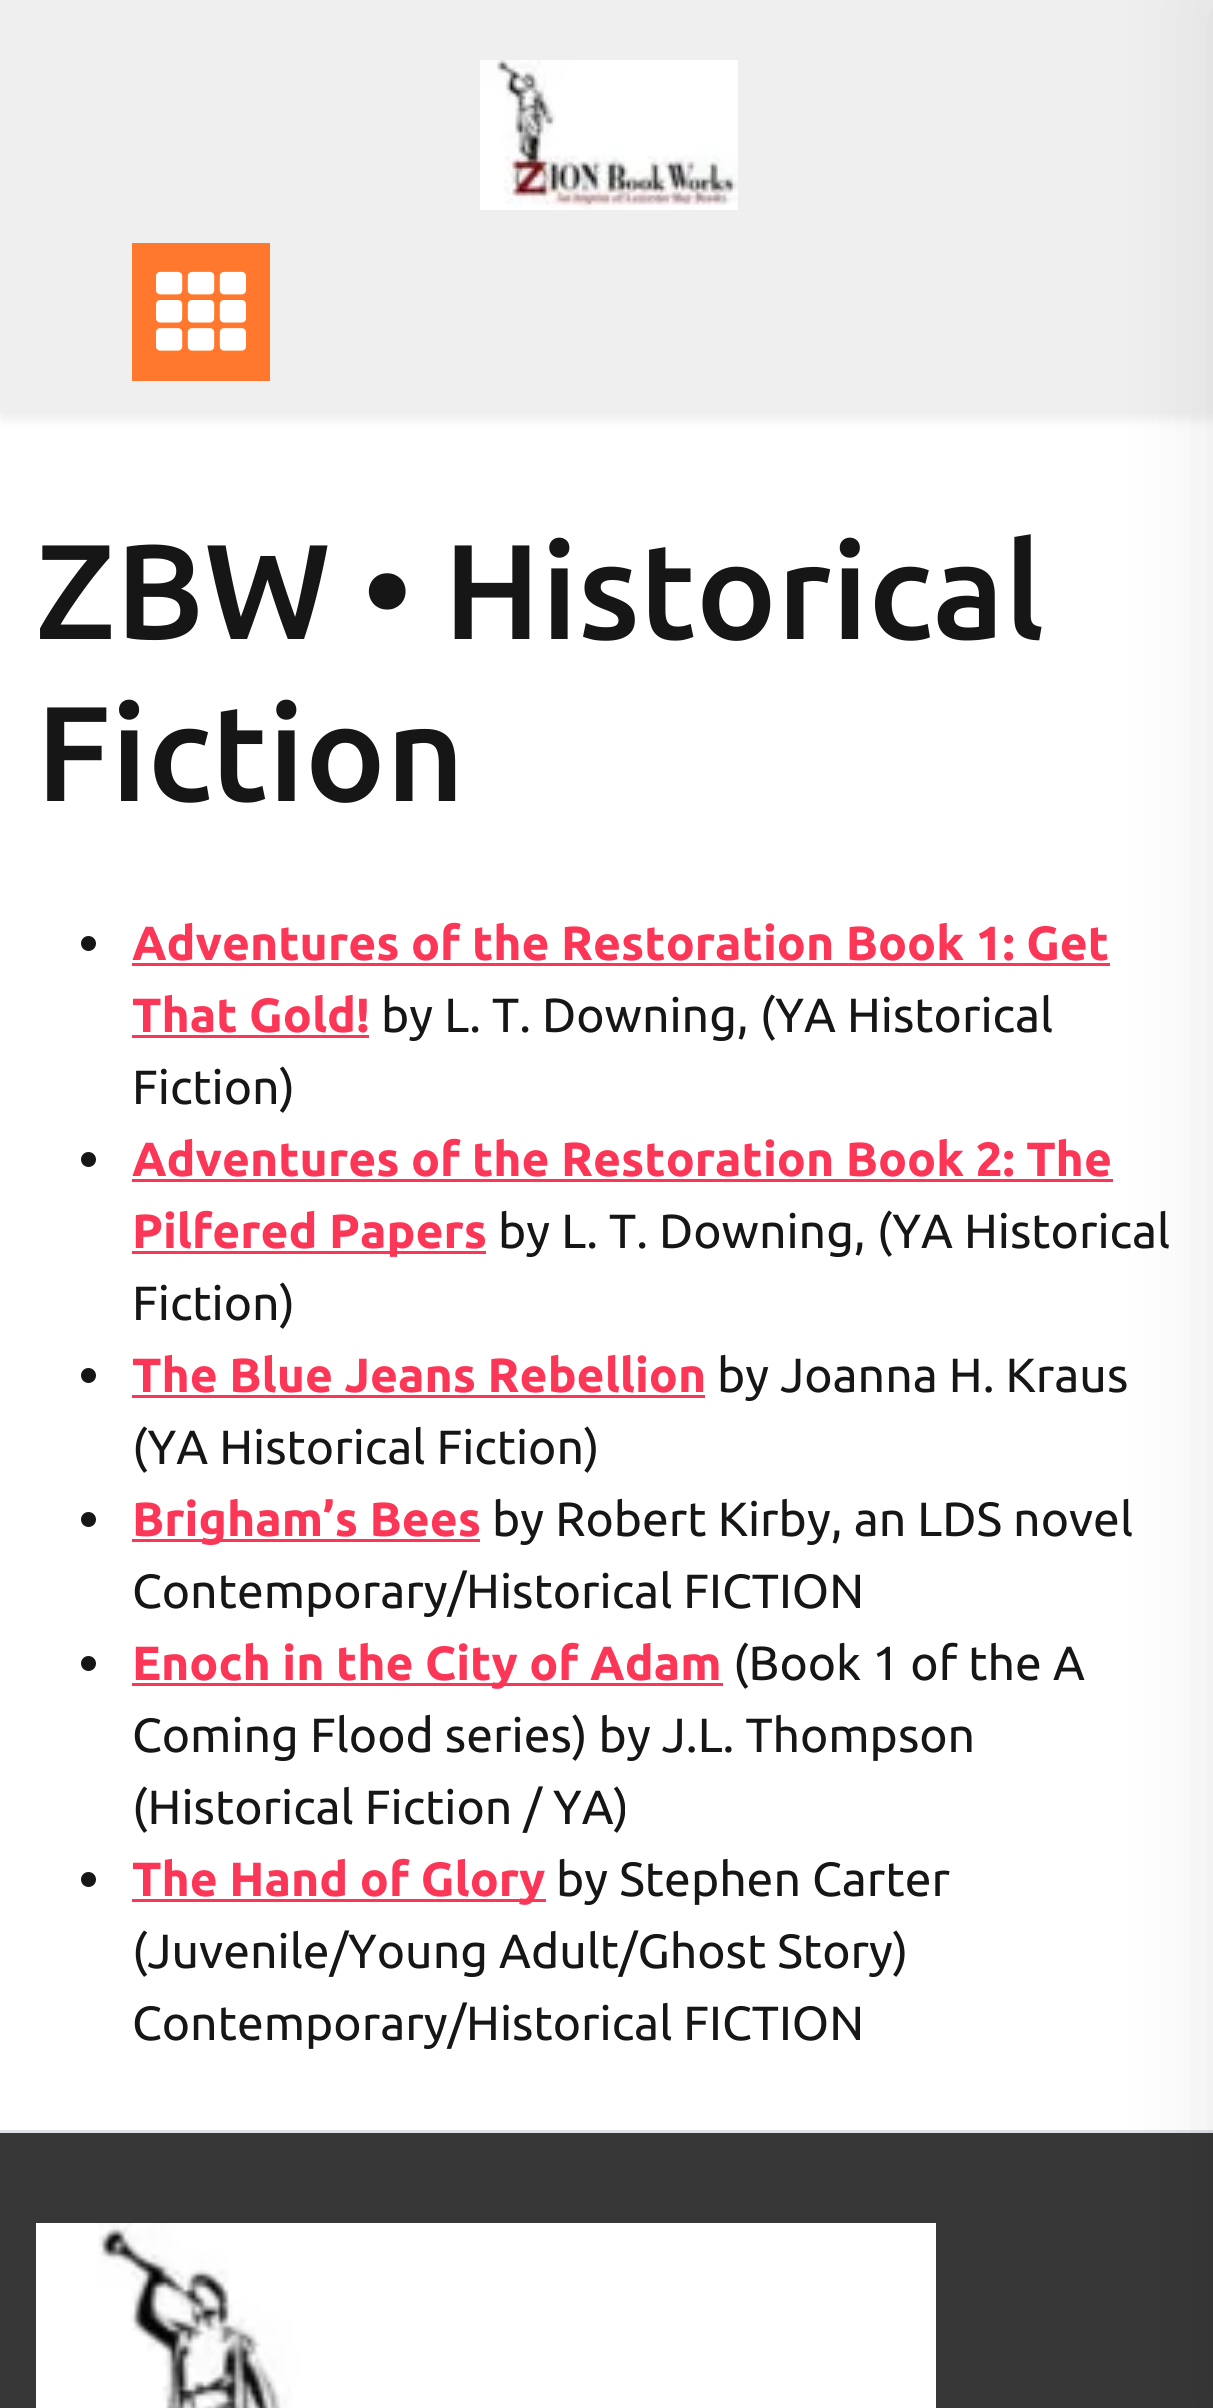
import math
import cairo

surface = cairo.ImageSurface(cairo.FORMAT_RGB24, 1213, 2408)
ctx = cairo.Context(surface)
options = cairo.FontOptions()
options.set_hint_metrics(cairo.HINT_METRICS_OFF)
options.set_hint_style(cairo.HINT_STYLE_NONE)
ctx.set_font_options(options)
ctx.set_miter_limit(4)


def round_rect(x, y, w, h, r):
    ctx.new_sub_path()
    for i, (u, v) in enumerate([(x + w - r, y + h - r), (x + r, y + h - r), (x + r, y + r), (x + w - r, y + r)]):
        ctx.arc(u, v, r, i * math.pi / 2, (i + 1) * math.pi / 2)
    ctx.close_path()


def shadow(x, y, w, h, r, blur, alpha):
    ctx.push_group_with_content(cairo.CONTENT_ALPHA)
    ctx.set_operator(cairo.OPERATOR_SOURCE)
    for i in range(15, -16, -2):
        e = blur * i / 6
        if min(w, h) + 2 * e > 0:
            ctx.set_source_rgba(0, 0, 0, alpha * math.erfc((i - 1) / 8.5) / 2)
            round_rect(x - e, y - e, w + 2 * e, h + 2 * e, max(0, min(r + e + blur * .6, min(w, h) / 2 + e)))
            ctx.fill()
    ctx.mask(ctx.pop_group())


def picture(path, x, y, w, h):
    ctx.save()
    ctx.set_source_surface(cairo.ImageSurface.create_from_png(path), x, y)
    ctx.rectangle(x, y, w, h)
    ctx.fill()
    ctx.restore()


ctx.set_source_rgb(1, 1, 1)
ctx.paint()
ctx.set_source_rgb(0, 0, 0)
shadow(0, 6, 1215, 414, 0, 6, 0.07)
ctx.set_source_rgb(0.937, 0.937, 0.937)
ctx.rectangle(0, 0, 1213, 414)
ctx.fill()
picture("img1.png", 480, 60, 258, 150)
ctx.set_source_rgb(1, 0.471, 0.176)
ctx.rectangle(132, 243, 138, 138)
ctx.fill()
picture("img2.png", 156, 271, 90, 80)
ctx.set_source_rgb(0.988, 0.212, 0.337)
ctx.rectangle(132, 963, 978, 3)
ctx.fill()
ctx.rectangle(132, 1179, 981, 3)
ctx.fill()
ctx.set_source_rgb(0.216, 0.216, 0.216)
ctx.rectangle(0, 2133, 1213, 275)
ctx.fill()
ctx.set_source_rgb(0.871, 0.886, 0.902)
ctx.rectangle(0, 2130, 1213, 3)
ctx.fill()
ctx.set_source_rgb(0, 0, 0)
shadow(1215, 0, 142, 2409, 0, 48, 0.1)
ctx.select_font_face("Ubuntu Medium")
ctx.set_font_size(135)
ctx.set_source_rgb(0.086, 0.086, 0.086)
ctx.move_to(36, 639)
ctx.show_text("ZBW • Historical")
ctx.move_to(36, 801)
ctx.show_text("Fiction")
ctx.new_path()
ctx.arc(88.5, 943.5, 7.5, 0, 2 * math.pi)
ctx.fill()
ctx.select_font_face("Ubuntu", cairo.FONT_SLANT_NORMAL, cairo.FONT_WEIGHT_BOLD)
ctx.set_font_size(48)
ctx.set_source_rgb(0.988, 0.212, 0.337)
ctx.move_to(132, 960)
ctx.show_text("Adventures of the Restoration Book 1: Get")
ctx.move_to(132, 1032)
ctx.show_text("That Gold!")
ctx.rectangle(132, 1035, 237, 3)
ctx.fill()
ctx.select_font_face("Ubuntu")
ctx.set_source_rgb(0.086, 0.086, 0.086)
ctx.move_to(381, 1032)
ctx.show_text("by L. T. Downing, (YA Historical")
ctx.move_to(132, 1104)
ctx.show_text("Fiction)")
ctx.new_path()
ctx.arc(88.5, 1159.5, 7.5, 0, 2 * math.pi)
ctx.fill()
ctx.select_font_face("Ubuntu", cairo.FONT_SLANT_NORMAL, cairo.FONT_WEIGHT_BOLD)
ctx.set_source_rgb(0.988, 0.212, 0.337)
ctx.move_to(132, 1176)
ctx.show_text("Adventures of the Restoration Book 2: The")
ctx.rectangle(132, 1251, 354, 3)
ctx.fill()
ctx.move_to(132, 1248)
ctx.show_text("Pilfered Papers")
ctx.select_font_face("Ubuntu")
ctx.set_source_rgb(0.086, 0.086, 0.086)
ctx.move_to(498, 1248)
ctx.show_text("by L. T. Downing, (YA Historical")
ctx.move_to(132, 1320)
ctx.show_text("Fiction)")
ctx.new_path()
ctx.arc(88.5, 1375.5, 7.5, 0, 2 * math.pi)
ctx.fill()
ctx.select_font_face("Ubuntu", cairo.FONT_SLANT_NORMAL, cairo.FONT_WEIGHT_BOLD)
ctx.set_source_rgb(0.988, 0.212, 0.337)
ctx.move_to(132, 1392)
ctx.show_text("The Blue Jeans Rebellion")
ctx.rectangle(132, 1395, 573, 3)
ctx.fill()
ctx.select_font_face("Ubuntu")
ctx.set_source_rgb(0.086, 0.086, 0.086)
ctx.move_to(717, 1392)
ctx.show_text("by Joanna H. Kraus")
ctx.move_to(132, 1464)
ctx.show_text("(YA Historical Fiction)")
ctx.new_path()
ctx.arc(88.5, 1519.5, 7.5, 0, 2 * math.pi)
ctx.fill()
ctx.set_source_rgb(0.988, 0.212, 0.337)
ctx.rectangle(132, 1539, 348, 3)
ctx.fill()
ctx.select_font_face("Ubuntu", cairo.FONT_SLANT_NORMAL, cairo.FONT_WEIGHT_BOLD)
ctx.move_to(132, 1536)
ctx.show_text("Brigham’s Bees")
ctx.select_font_face("Ubuntu")
ctx.set_source_rgb(0.086, 0.086, 0.086)
ctx.move_to(492, 1536)
ctx.show_text("by Robert Kirby, an LDS novel")
ctx.move_to(132, 1608)
ctx.show_text("Contemporary/Historical FICTION")
ctx.new_path()
ctx.arc(88.5, 1663.5, 7.5, 0, 2 * math.pi)
ctx.fill()
ctx.set_source_rgb(0.988, 0.212, 0.337)
ctx.rectangle(132, 1683, 591, 3)
ctx.fill()
ctx.select_font_face("Ubuntu", cairo.FONT_SLANT_NORMAL, cairo.FONT_WEIGHT_BOLD)
ctx.move_to(132, 1680)
ctx.show_text("Enoch in the City of Adam")
ctx.select_font_face("Ubuntu")
ctx.set_source_rgb(0.086, 0.086, 0.086)
ctx.move_to(733, 1680)
ctx.show_text("(Book 1 of the A")
ctx.move_to(132, 1752)
ctx.show_text("Coming Flood series) by J.L. Thompson")
ctx.move_to(132, 1824)
ctx.show_text("(Historical Fiction / YA)")
ctx.new_path()
ctx.arc(88.5, 1879.5, 7.5, 0, 2 * math.pi)
ctx.fill()
ctx.set_source_rgb(0.988, 0.212, 0.337)
ctx.rectangle(132, 1899, 414, 3)
ctx.fill()
ctx.select_font_face("Ubuntu", cairo.FONT_SLANT_NORMAL, cairo.FONT_WEIGHT_BOLD)
ctx.move_to(132, 1896)
ctx.show_text("The Hand of Glory")
ctx.select_font_face("Ubuntu")
ctx.set_source_rgb(0.086, 0.086, 0.086)
ctx.move_to(556, 1896)
ctx.show_text("by Stephen Carter")
ctx.move_to(132, 1968)
ctx.show_text("(Juvenile/Young Adult/Ghost Story)")
ctx.move_to(132, 2040)
ctx.show_text("Contemporary/Historical FICTION")
picture("img3.png", 36, 2223, 900, 185)
surface.write_to_png("page.png")
